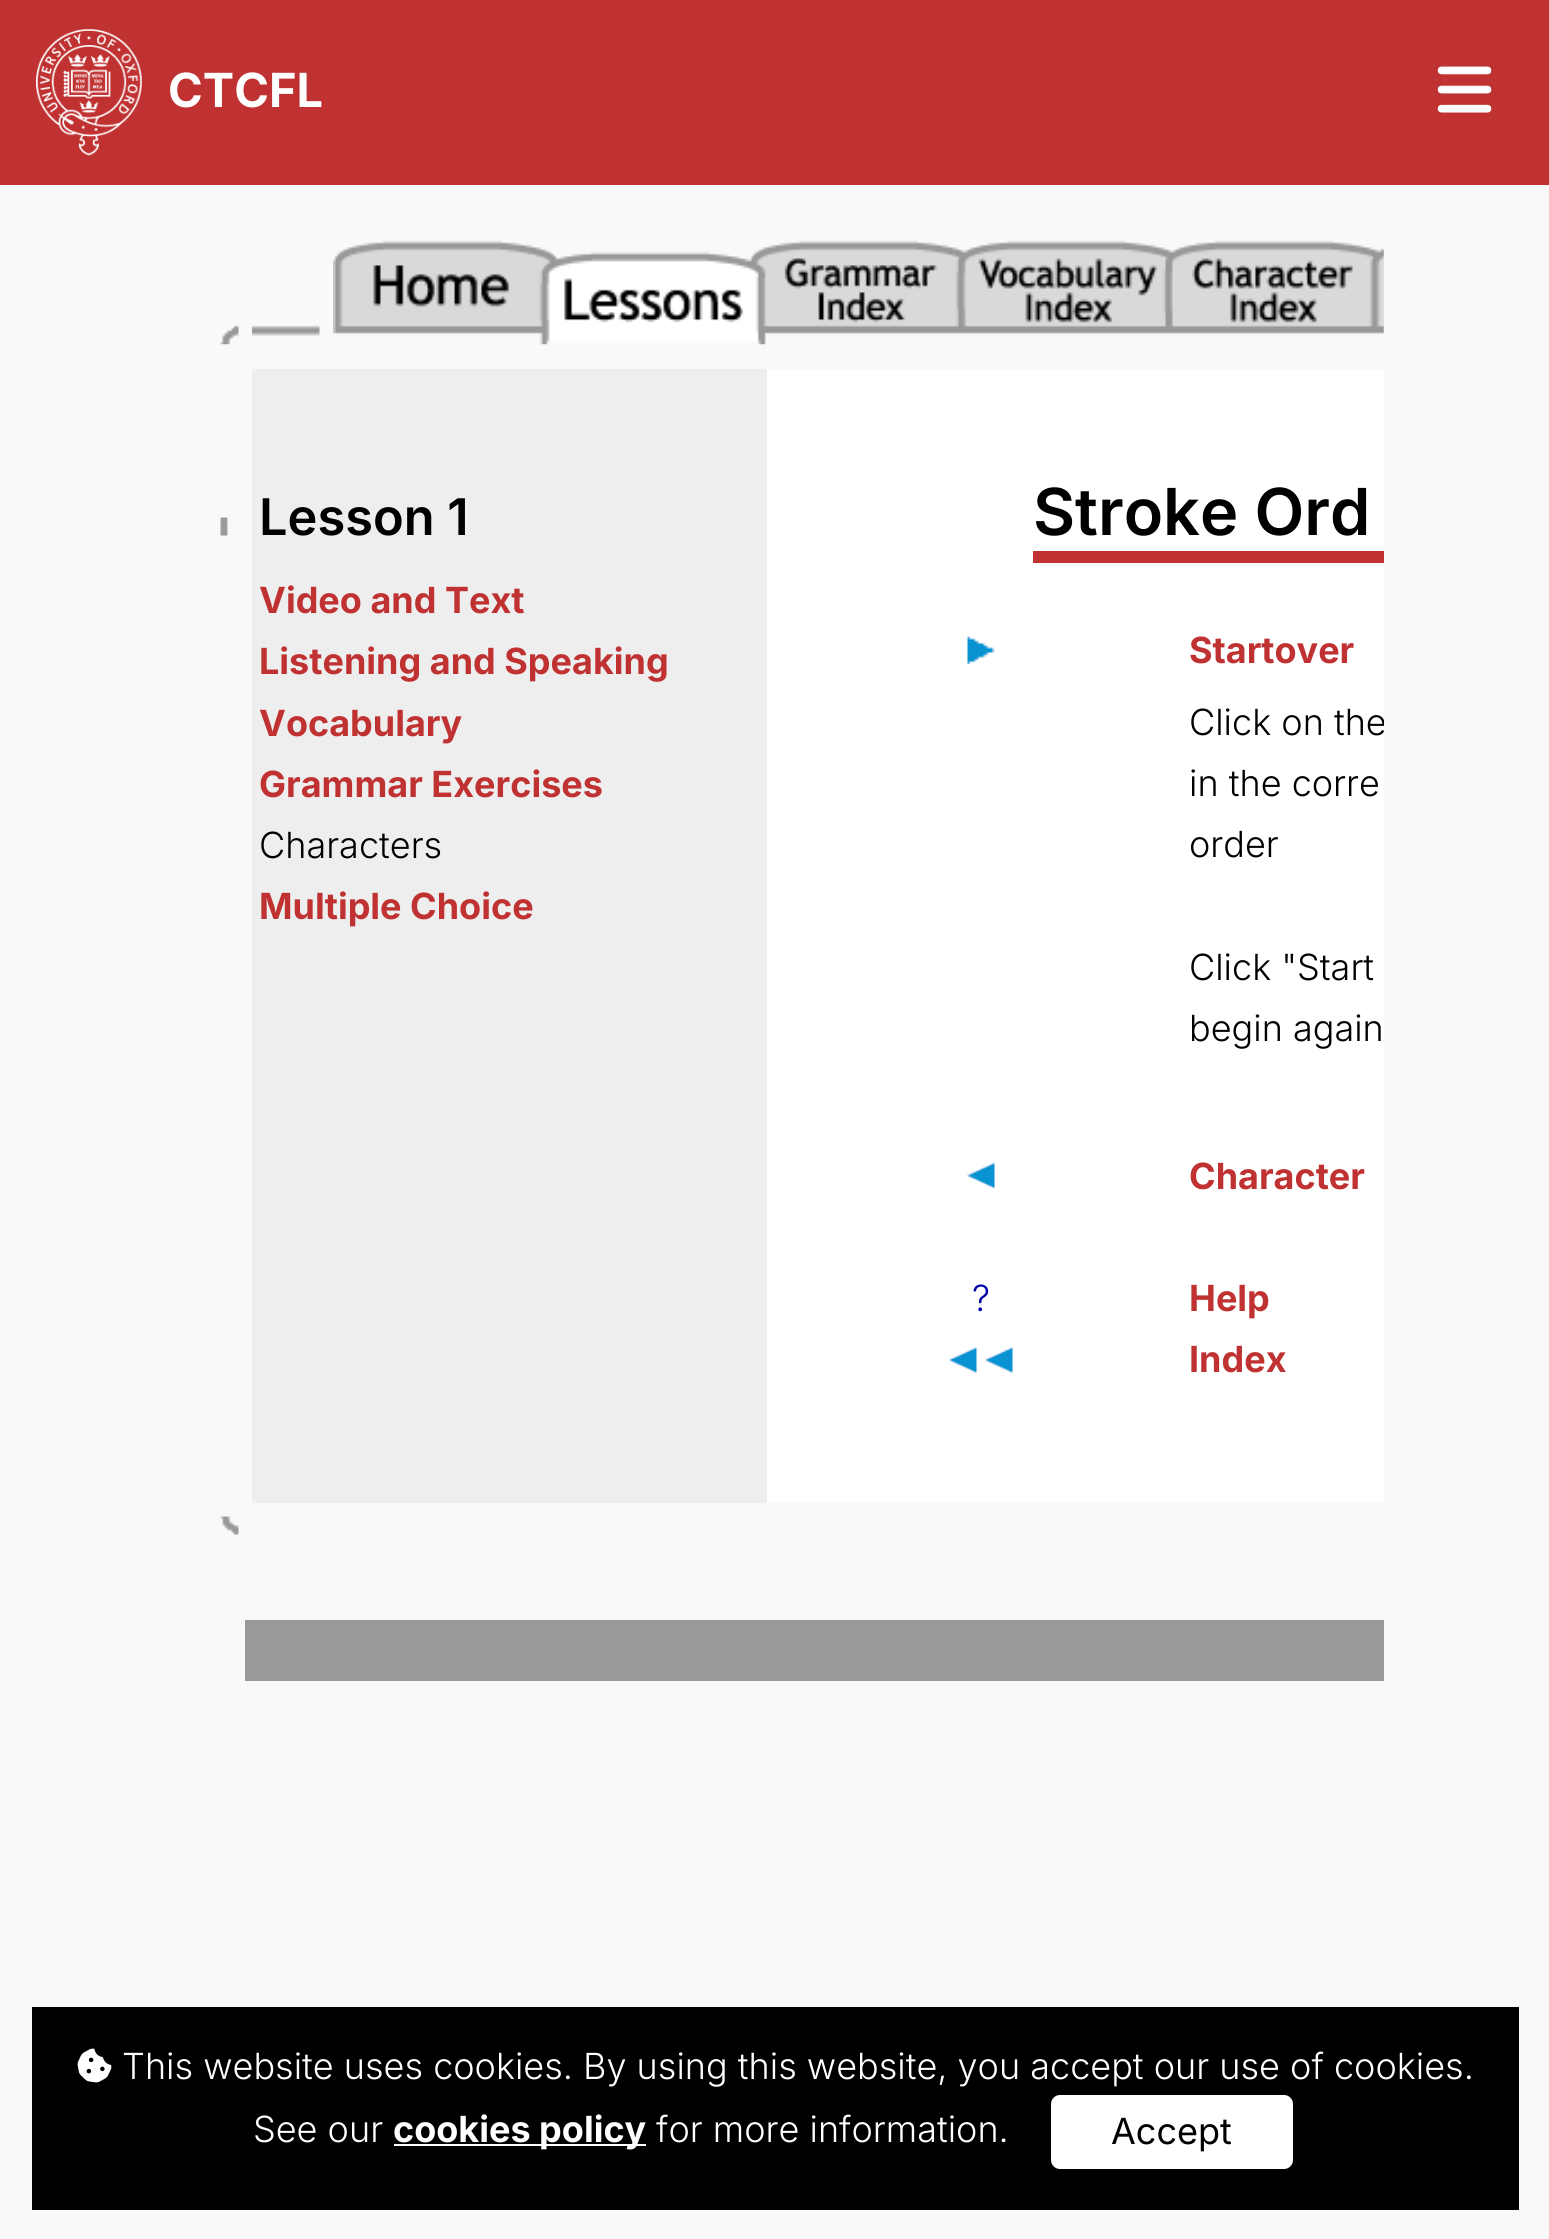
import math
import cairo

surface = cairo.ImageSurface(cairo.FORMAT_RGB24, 1549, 2239)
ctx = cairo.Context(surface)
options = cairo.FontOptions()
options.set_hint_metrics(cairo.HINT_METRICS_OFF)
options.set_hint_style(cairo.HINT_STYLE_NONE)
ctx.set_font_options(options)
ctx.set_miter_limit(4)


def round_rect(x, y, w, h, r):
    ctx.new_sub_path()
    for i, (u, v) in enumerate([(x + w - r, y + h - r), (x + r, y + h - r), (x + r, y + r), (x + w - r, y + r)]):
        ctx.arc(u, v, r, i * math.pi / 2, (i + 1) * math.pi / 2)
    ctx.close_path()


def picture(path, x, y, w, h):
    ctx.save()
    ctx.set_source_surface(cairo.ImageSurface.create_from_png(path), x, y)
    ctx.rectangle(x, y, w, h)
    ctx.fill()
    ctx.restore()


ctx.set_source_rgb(0.973, 0.973, 0.973)
ctx.paint()
ctx.set_source_rgb(0.753, 0.196, 0.196)
ctx.rectangle(0, 0, 1549, 185)
ctx.fill()
picture("img1.png", 36, 29, 106, 127)
ctx.select_font_face("Inter", cairo.FONT_SLANT_NORMAL, cairo.FONT_WEIGHT_BOLD)
ctx.set_font_size(47)
ctx.set_source_rgb(1, 1, 1)
ctx.move_to(168, 107)
ctx.show_text("CTCFL")
picture("img2.png", 1437, 66, 55, 47)
picture("img3.png", 220, 325, 19, 20)
picture("img4.png", 252, 325, 68, 11)
picture("img5.png", 333, 240, 1051, 105)
picture("img6.png", 220, 517, 8, 19)
ctx.set_source_rgb(0.933, 0.933, 0.933)
ctx.rectangle(252, 369, 515, 1134)
ctx.fill()
ctx.select_font_face("Inter SemiBold")
ctx.set_font_size(50.5)
ctx.set_source_rgb(0, 0, 0)
ctx.move_to(259, 535)
ctx.show_text("Lesson 1")
ctx.select_font_face("Inter", cairo.FONT_SLANT_NORMAL, cairo.FONT_WEIGHT_BOLD)
ctx.set_font_size(36)
ctx.set_source_rgb(0.753, 0.196, 0.196)
ctx.move_to(259, 613)
ctx.show_text("Video and Text")
ctx.move_to(259, 674)
ctx.show_text("Listening and Speaking")
ctx.move_to(259, 736)
ctx.show_text("Vocabulary")
ctx.move_to(259, 797)
ctx.show_text("Grammar Exercises")
ctx.select_font_face("Inter Light")
ctx.set_source_rgb(0, 0, 0)
ctx.move_to(259, 858)
ctx.show_text("Characters")
ctx.select_font_face("Inter", cairo.FONT_SLANT_NORMAL, cairo.FONT_WEIGHT_BOLD)
ctx.set_source_rgb(0.753, 0.196, 0.196)
ctx.move_to(259, 919)
ctx.show_text("Multiple Choice")
ctx.set_source_rgb(1, 1, 1)
ctx.rectangle(767, 369, 617, 1134)
ctx.fill()
ctx.set_source_rgb(0.753, 0.196, 0.196)
ctx.rectangle(1033, 551, 351, 12)
ctx.fill()
ctx.select_font_face("Inter SemiBold")
ctx.set_font_size(64.75)
ctx.set_source_rgb(0, 0, 0)
ctx.move_to(1033, 535)
ctx.show_text("Stroke Ord")
picture("img7.png", 967, 636, 28, 28)
ctx.select_font_face("Inter", cairo.FONT_SLANT_NORMAL, cairo.FONT_WEIGHT_BOLD)
ctx.set_font_size(36)
ctx.set_source_rgb(0.753, 0.196, 0.196)
ctx.move_to(1189, 663)
ctx.show_text("Startover")
ctx.save()
ctx.rectangle(169, 162, 1215, 1942)
ctx.clip()
ctx.select_font_face("Inter Light")
ctx.set_source_rgb(0, 0, 0)
ctx.move_to(1189, 735)
ctx.show_text("Click on the")
ctx.restore()
ctx.select_font_face("Inter Light")
ctx.set_source_rgb(0, 0, 0)
ctx.move_to(1189, 796)
ctx.show_text("in the corre")
ctx.move_to(1189, 857)
ctx.show_text("order")
ctx.move_to(1189, 980)
ctx.show_text("Click \"Start")
ctx.move_to(1189, 1041)
ctx.show_text("begin again")
picture("img8.png", 967, 1163, 28, 25)
ctx.select_font_face("Inter", cairo.FONT_SLANT_NORMAL, cairo.FONT_WEIGHT_BOLD)
ctx.set_source_rgb(0.753, 0.196, 0.196)
ctx.move_to(1189, 1189)
ctx.show_text("Character")
ctx.select_font_face("Inter Light")
ctx.set_source_rgb(0, 0, 0.667)
ctx.move_to(972, 1311)
ctx.show_text("?")
ctx.select_font_face("Inter", cairo.FONT_SLANT_NORMAL, cairo.FONT_WEIGHT_BOLD)
ctx.set_source_rgb(0.753, 0.196, 0.196)
ctx.move_to(1189, 1311)
ctx.show_text("Help")
picture("img9.png", 949, 1347, 28, 26)
picture("img9.png", 985, 1347, 28, 26)
ctx.move_to(1189, 1372)
ctx.show_text("Index")
picture("img10.png", 220, 1516, 19, 20)
ctx.set_source_rgb(0.6, 0.6, 0.6)
ctx.rectangle(245, 1620, 1139, 61)
ctx.fill()
ctx.set_source_rgb(0, 0, 0)
ctx.rectangle(32, 2007, 1487, 203)
ctx.fill()
picture("img11.png", 77, 2048, 35, 35)
ctx.select_font_face("Inter Light")
ctx.set_source_rgb(1, 1, 1)
ctx.move_to(122, 2079)
ctx.show_text("This website uses cookies. By using this website, you accept our use of cookies.")
ctx.move_to(253, 2142)
ctx.show_text("See our")
ctx.rectangle(394, 2144, 252, 2)
ctx.fill()
ctx.select_font_face("Inter", cairo.FONT_SLANT_NORMAL, cairo.FONT_WEIGHT_BOLD)
ctx.move_to(393, 2142)
ctx.show_text("cookies policy")
ctx.select_font_face("Inter Light")
ctx.move_to(656, 2142)
ctx.show_text("for more information.")
round_rect(1048.5, 2092.5, 247, 79, 11.5)
ctx.fill_preserve()
ctx.set_source_rgb(0, 0, 0)
ctx.set_line_width(5)
ctx.stroke()
ctx.select_font_face("Inter")
ctx.move_to(1111, 2144)
ctx.show_text("Accept")
surface.write_to_png("page.png")
